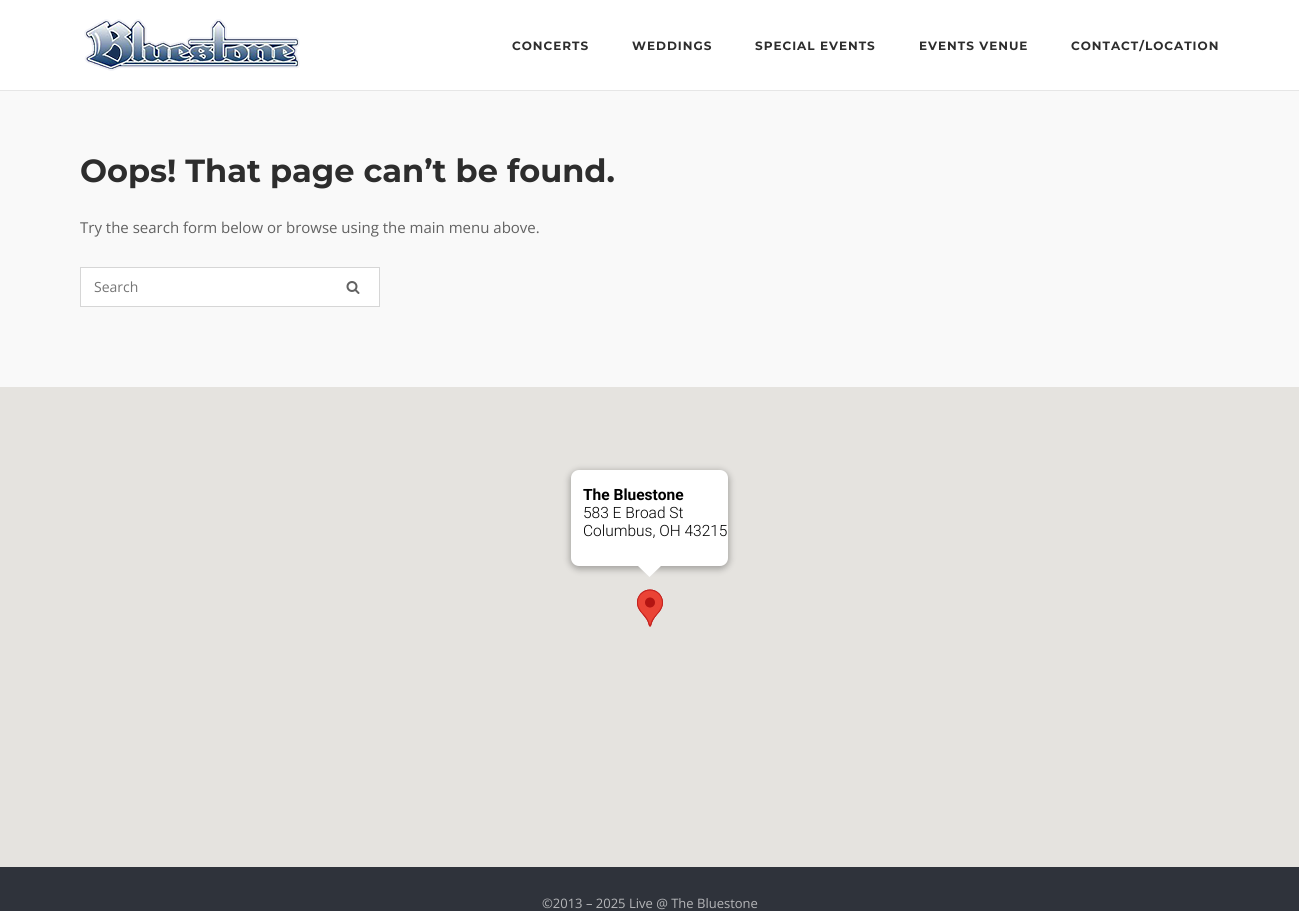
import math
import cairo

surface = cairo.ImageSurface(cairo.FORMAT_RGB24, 1299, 911)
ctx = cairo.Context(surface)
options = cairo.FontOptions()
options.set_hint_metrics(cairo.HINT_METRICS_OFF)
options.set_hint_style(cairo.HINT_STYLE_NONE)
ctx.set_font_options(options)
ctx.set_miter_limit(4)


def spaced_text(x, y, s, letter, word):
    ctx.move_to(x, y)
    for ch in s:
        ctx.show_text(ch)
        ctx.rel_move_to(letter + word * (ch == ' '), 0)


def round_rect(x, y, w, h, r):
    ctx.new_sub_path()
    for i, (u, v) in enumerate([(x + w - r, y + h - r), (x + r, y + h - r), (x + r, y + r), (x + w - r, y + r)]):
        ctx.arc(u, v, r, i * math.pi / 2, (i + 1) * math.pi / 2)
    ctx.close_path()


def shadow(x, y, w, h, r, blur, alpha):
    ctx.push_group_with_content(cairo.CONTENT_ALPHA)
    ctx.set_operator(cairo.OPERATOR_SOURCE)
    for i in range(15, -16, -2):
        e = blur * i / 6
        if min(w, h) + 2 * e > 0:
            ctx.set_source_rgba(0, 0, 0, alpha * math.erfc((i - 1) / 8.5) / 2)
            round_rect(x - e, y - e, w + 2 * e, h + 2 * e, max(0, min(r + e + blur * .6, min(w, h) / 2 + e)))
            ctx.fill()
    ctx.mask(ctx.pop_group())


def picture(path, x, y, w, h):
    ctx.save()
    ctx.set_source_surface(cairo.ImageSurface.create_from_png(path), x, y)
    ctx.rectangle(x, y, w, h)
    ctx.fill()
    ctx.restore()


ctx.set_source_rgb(0.976, 0.976, 0.976)
ctx.paint()
ctx.set_source_rgb(1, 1, 1)
ctx.rectangle(0, 0, 1299, 90)
ctx.fill()
ctx.set_source_rgb(0.902, 0.902, 0.902)
ctx.rectangle(0, 90, 1299, 1)
ctx.fill()
picture("img1.png", 84, 19, 216, 52)
ctx.select_font_face("Montserrat", cairo.FONT_SLANT_NORMAL, cairo.FONT_WEIGHT_BOLD)
ctx.set_font_size(12)
ctx.set_source_rgb(0.176, 0.176, 0.176)
spaced_text(512, 50, "CONCERTS", 1, 0)
spaced_text(632, 50, "WEDDINGS", 1, 0)
spaced_text(755, 50, "SPECIAL EVENTS", 1, 0)
spaced_text(919, 50, "EVENTS VENUE", 1, 0)
spaced_text(1071, 50, "CONTACT/LOCATION", 1, 0)
ctx.set_font_size(32)
ctx.move_to(80, 182)
ctx.show_text("Oops! That page can’t be found.")
ctx.select_font_face("Open Sans")
ctx.set_font_size(15)
ctx.set_source_rgb(0.384, 0.384, 0.384)
ctx.move_to(80, 233)
ctx.show_text("Try the search form below or browse using the main menu above.")
ctx.set_source_rgb(1, 1, 1)
ctx.rectangle(80.5, 267.5, 299, 39)
ctx.fill_preserve()
ctx.set_source_rgb(0.839, 0.839, 0.839)
ctx.set_line_width(1)
ctx.stroke()
ctx.set_font_size(14)
ctx.set_source_rgb(0.459, 0.459, 0.459)
ctx.move_to(94, 292)
ctx.show_text("Search")
picture("img2.png", 346, 281, 14, 13)
ctx.set_source_rgb(0.898, 0.89, 0.875)
ctx.rectangle(0, 387, 1299, 480)
ctx.fill()
ctx.set_source_rgb(0, 0, 0)
shadow(570, 471, 159, 98, 9, 3.5, 0.3)
ctx.set_source_rgb(1, 1, 1)
round_rect(571, 470, 157, 96, 8)
ctx.fill()
ctx.select_font_face("Roboto", cairo.FONT_SLANT_NORMAL, cairo.FONT_WEIGHT_BOLD)
ctx.set_font_size(15.5)
ctx.set_source_rgb(0, 0, 0)
ctx.move_to(583, 500)
ctx.show_text("The Bluestone")
ctx.select_font_face("Roboto Light")
ctx.move_to(583, 518)
ctx.show_text("583 E Broad St")
ctx.move_to(583, 536)
ctx.show_text("Columbus, OH 43215")
ctx.set_source_rgb(1, 1, 1)
ctx.new_path()
ctx.move_to(638, 565)
ctx.line_to(638, 566)
ctx.line_to(649.5, 577)
ctx.line_to(662, 565)
ctx.close_path()
ctx.fill()
picture("img3.png", 637, 589, 26, 38)
picture("img4.png", 637, 589, 26, 38)
ctx.set_source_rgb(0.184, 0.2, 0.231)
ctx.rectangle(0, 867, 1299, 44)
ctx.fill()
ctx.select_font_face("Open Sans")
ctx.set_font_size(13)
ctx.set_source_rgb(0.706, 0.71, 0.722)
ctx.move_to(542, 908)
ctx.show_text("©2013 – 2025 Live @ The Bluestone")
surface.write_to_png("page.png")
